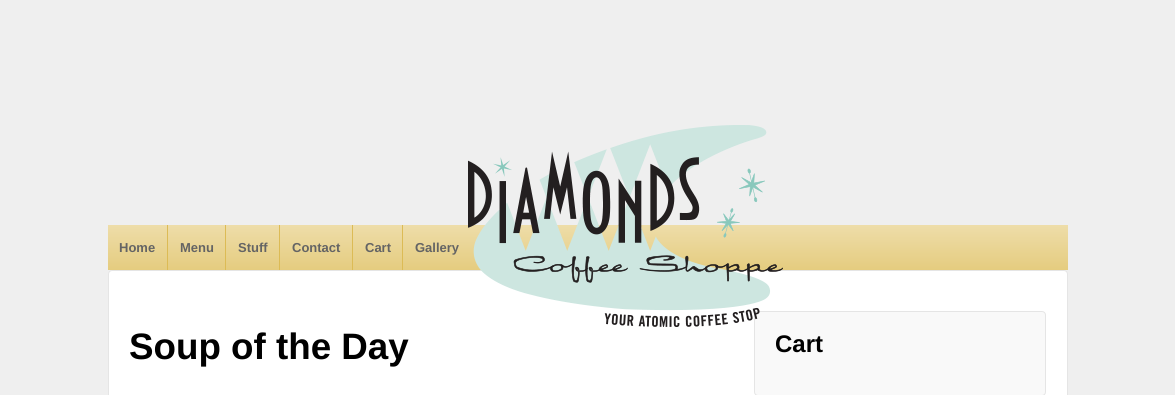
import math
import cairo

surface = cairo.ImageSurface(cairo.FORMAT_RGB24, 1175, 395)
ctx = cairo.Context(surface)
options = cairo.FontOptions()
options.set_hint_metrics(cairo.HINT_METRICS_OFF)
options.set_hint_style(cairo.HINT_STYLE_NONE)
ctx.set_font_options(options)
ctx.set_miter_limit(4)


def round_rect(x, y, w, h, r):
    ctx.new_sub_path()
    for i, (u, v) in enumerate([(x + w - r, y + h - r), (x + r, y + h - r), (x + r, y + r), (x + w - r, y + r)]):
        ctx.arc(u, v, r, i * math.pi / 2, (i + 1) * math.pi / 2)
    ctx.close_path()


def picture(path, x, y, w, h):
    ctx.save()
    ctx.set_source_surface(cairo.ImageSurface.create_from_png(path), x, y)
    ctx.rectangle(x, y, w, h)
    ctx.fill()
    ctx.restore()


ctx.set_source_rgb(0.937, 0.937, 0.937)
ctx.paint()
gradient = cairo.LinearGradient(588, 225, 588, 270)
gradient.add_color_stop_rgba(0, 0.933, 0.867, 0.663, 1)
gradient.add_color_stop_rgba(1, 0.898, 0.8, 0.498, 1)
ctx.set_source(gradient)
ctx.rectangle(108, 225, 960, 45)
ctx.fill()
ctx.select_font_face("Liberation Sans", cairo.FONT_SLANT_NORMAL, cairo.FONT_WEIGHT_BOLD)
ctx.set_font_size(13)
ctx.set_source_rgb(0.392, 0.392, 0.392)
ctx.move_to(119, 252)
ctx.show_text("Home")
ctx.set_source_rgb(0.863, 0.733, 0.333)
ctx.rectangle(167, 225, 1, 45)
ctx.fill()
ctx.set_source_rgb(0.392, 0.392, 0.392)
ctx.move_to(180, 252)
ctx.show_text("Menu")
ctx.set_source_rgb(0.863, 0.733, 0.333)
ctx.rectangle(225, 225, 1, 45)
ctx.fill()
ctx.set_source_rgb(0.392, 0.392, 0.392)
ctx.move_to(238, 252)
ctx.show_text("Stuff")
ctx.set_source_rgb(0.863, 0.733, 0.333)
ctx.rectangle(279, 225, 1, 45)
ctx.fill()
ctx.set_source_rgb(0.392, 0.392, 0.392)
ctx.move_to(292, 252)
ctx.show_text("Contact")
ctx.set_source_rgb(0.863, 0.733, 0.333)
ctx.rectangle(352, 225, 1, 45)
ctx.fill()
ctx.set_source_rgb(0.392, 0.392, 0.392)
ctx.move_to(365, 252)
ctx.show_text("Cart")
ctx.set_source_rgb(0.863, 0.733, 0.333)
ctx.rectangle(402, 225, 1, 45)
ctx.fill()
ctx.set_source_rgb(0.392, 0.392, 0.392)
ctx.move_to(415, 252)
ctx.show_text("Gallery")
ctx.set_source_rgb(1, 1, 1)
round_rect(108.5, 270.5, 959, 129, 3.5)
ctx.fill_preserve()
ctx.set_source_rgb(0.898, 0.898, 0.898)
ctx.set_line_width(1)
ctx.stroke()
ctx.set_source_rgb(0.976, 0.976, 0.976)
round_rect(754.5, 311.5, 291, 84, 3.5)
ctx.fill_preserve()
ctx.set_source_rgb(0.898, 0.898, 0.898)
ctx.stroke()
picture("img1.png", 468, 125, 315, 202)
ctx.set_font_size(36.75)
ctx.set_source_rgb(0, 0, 0)
ctx.move_to(129, 359)
ctx.show_text("Soup of the Day")
ctx.set_font_size(24)
ctx.move_to(775, 352)
ctx.show_text("Cart")
surface.write_to_png("page.png")
